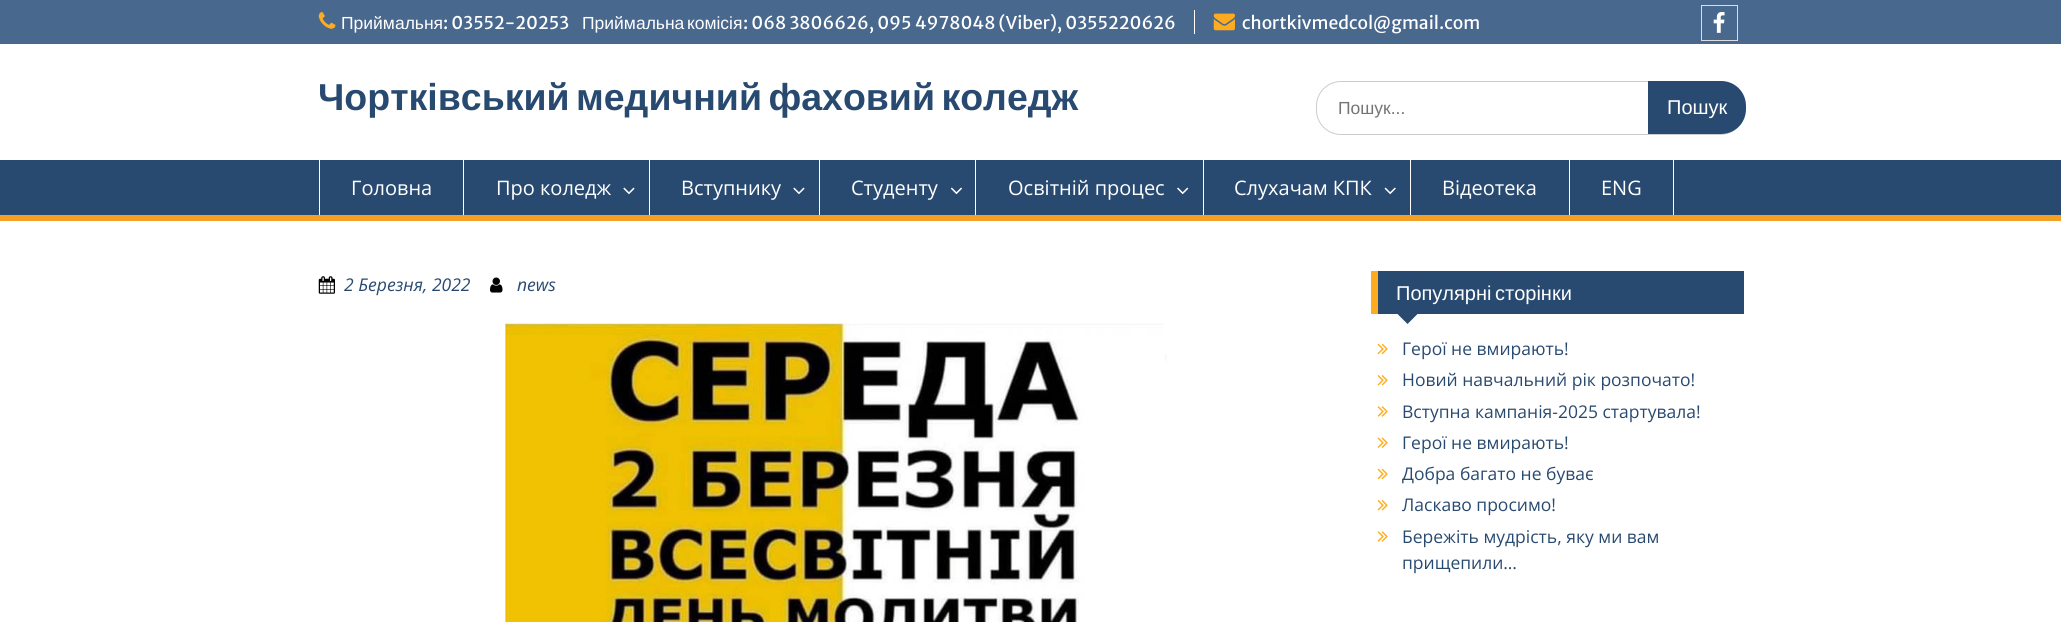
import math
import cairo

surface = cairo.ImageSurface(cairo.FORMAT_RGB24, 2061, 622)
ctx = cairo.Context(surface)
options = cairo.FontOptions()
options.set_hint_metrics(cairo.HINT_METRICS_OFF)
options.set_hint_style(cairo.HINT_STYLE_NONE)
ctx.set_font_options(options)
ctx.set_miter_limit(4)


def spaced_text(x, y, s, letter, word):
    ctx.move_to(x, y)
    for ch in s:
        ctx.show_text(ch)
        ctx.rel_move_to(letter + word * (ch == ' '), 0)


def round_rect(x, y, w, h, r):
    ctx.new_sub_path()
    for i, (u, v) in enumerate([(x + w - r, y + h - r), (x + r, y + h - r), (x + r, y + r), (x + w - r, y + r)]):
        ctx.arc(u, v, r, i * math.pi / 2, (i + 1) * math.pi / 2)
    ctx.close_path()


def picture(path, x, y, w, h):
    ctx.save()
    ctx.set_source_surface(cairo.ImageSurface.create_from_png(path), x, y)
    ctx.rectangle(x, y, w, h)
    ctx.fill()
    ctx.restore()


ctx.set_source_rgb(1, 1, 1)
ctx.paint()
ctx.set_source_rgb(0.286, 0.408, 0.557)
ctx.rectangle(0, 0, 2061, 44)
ctx.fill()
picture("img1.png", 318, 12, 18, 17)
ctx.select_font_face("Liberation Sans")
ctx.set_font_size(17.5)
ctx.set_source_rgb(1, 1, 1)
ctx.move_to(341, 29)
ctx.show_text("Приймальня")
ctx.select_font_face("Merriweather Sans")
ctx.move_to(443, 29)
ctx.show_text(": 03552-20253")
ctx.select_font_face("Liberation Sans")
ctx.move_to(582, 29)
ctx.show_text("Приймальна")
ctx.move_to(687, 29)
ctx.show_text("комісія")
ctx.select_font_face("Merriweather Sans")
ctx.move_to(743, 29)
ctx.show_text(": 068 3806626, 095 4978048 (Viber), 0355220626")
ctx.rectangle(1194, 10, 1, 24)
ctx.fill()
picture("img2.png", 1213, 13, 22, 18)
ctx.move_to(1242, 29)
ctx.show_text("chortkivmedcol@gmail.com")
ctx.rectangle(1701.5, 5.5, 36, 35)
ctx.set_source_rgb(0.867, 0.867, 0.867)
ctx.set_line_width(1)
ctx.stroke()
picture("img3.png", 1713, 12, 12, 21)
ctx.select_font_face("Liberation Sans", cairo.FONT_SLANT_NORMAL, cairo.FONT_WEIGHT_BOLD)
ctx.set_font_size(37.5)
ctx.set_source_rgb(0.161, 0.29, 0.439)
spaced_text(318, 110, "Чортківський медичний фаховий коледж", 0, -4)
round_rect(1316.5, 81.5, 428, 53, 24.5)
ctx.set_source_rgb(0.8, 0.8, 0.8)
ctx.stroke()
ctx.select_font_face("Liberation Sans")
ctx.set_font_size(17.5)
ctx.set_source_rgb(0.459, 0.459, 0.459)
ctx.move_to(1338, 114)
ctx.show_text("Пошук...")
ctx.set_source_rgb(0.161, 0.29, 0.439)
ctx.new_path()
ctx.move_to(1648, 81)
ctx.line_to(1721, 81)
ctx.curve_to(1735, 81, 1746, 92, 1746, 106)
ctx.line_to(1746, 109)
ctx.curve_to(1746, 123, 1735, 134, 1721, 134)
ctx.line_to(1648, 134)
ctx.close_path()
ctx.fill()
ctx.set_font_size(20)
ctx.set_source_rgb(1, 1, 1)
ctx.move_to(1667, 114)
ctx.show_text("Пошук")
ctx.set_source_rgb(0.161, 0.29, 0.439)
ctx.rectangle(0, 160, 2061, 55)
ctx.fill()
ctx.set_source_rgb(0.957, 0.627, 0.141)
ctx.rectangle(0, 215, 2061, 6)
ctx.fill()
ctx.set_source_rgb(1, 1, 1)
ctx.rectangle(463, 160, 1, 55)
ctx.fill()
ctx.rectangle(319, 160, 1, 55)
ctx.fill()
ctx.select_font_face("Open Sans")
ctx.move_to(351, 195)
ctx.show_text("Головна")
ctx.rectangle(649, 160, 1, 55)
ctx.fill()
ctx.move_to(496, 195)
ctx.show_text("Про коледж")
picture("img4.png", 623, 187, 12, 8)
ctx.rectangle(819, 160, 1, 55)
ctx.fill()
ctx.move_to(681, 195)
ctx.show_text("Вступнику")
picture("img4.png", 793, 187, 12, 8)
ctx.rectangle(975, 160, 1, 55)
ctx.fill()
ctx.move_to(851, 195)
ctx.show_text("Студенту")
picture("img5.png", 950, 187, 12, 8)
ctx.rectangle(1203, 160, 1, 55)
ctx.fill()
ctx.move_to(1008, 195)
ctx.show_text("Освітній процес")
picture("img6.png", 1177, 187, 12, 8)
ctx.rectangle(1410, 160, 1, 55)
ctx.fill()
ctx.move_to(1234, 195)
ctx.show_text("Слухачам КПК")
picture("img7.png", 1384, 187, 12, 8)
ctx.rectangle(1569, 160, 1, 55)
ctx.fill()
ctx.move_to(1442, 195)
ctx.show_text("Відеотека")
ctx.rectangle(1673, 160, 1, 55)
ctx.fill()
ctx.move_to(1601, 195)
ctx.show_text("ENG")
picture("img8.png", 318, 276, 17, 18)
ctx.select_font_face("Open Sans", cairo.FONT_SLANT_ITALIC)
ctx.set_font_size(17.5)
ctx.set_source_rgb(0.161, 0.29, 0.439)
ctx.move_to(344, 291)
ctx.show_text("2 Березня, 2022")
picture("img9.png", 490, 277, 13, 16)
ctx.move_to(517, 291)
ctx.show_text("news")
picture("img10.png", 505, 323, 662, 299)
ctx.rectangle(1378, 271, 366, 43)
ctx.fill()
ctx.set_source_rgb(1, 0.671, 0.122)
ctx.rectangle(1371, 271, 7, 43)
ctx.fill()
ctx.select_font_face("Liberation Sans")
ctx.set_font_size(20)
ctx.set_source_rgb(1, 1, 1)
spaced_text(1396, 300, "Популярні сторінки", 0, -2)
ctx.set_source_rgb(0.161, 0.29, 0.439)
ctx.new_path()
ctx.move_to(1396, 312.5)
ctx.line_to(1419, 312.5)
ctx.line_to(1407.5, 324)
ctx.close_path()
ctx.fill()
picture("img11.png", 1377, 343, 11, 12)
ctx.select_font_face("Open Sans")
ctx.set_font_size(17.5)
ctx.move_to(1402, 355)
ctx.show_text("Герої не вмирають!")
picture("img12.png", 1377, 375, 11, 11)
ctx.move_to(1402, 386)
ctx.show_text("Новий навчальний рік розпочато!")
picture("img13.png", 1377, 406, 11, 11)
ctx.move_to(1402, 418)
ctx.show_text("Вступна кампанія-2025 стартувала!")
picture("img14.png", 1377, 437, 11, 11)
ctx.move_to(1402, 449)
ctx.show_text("Герої не вмирають!")
picture("img11.png", 1377, 468, 11, 12)
ctx.move_to(1402, 480)
ctx.show_text("Добра багато не буває")
picture("img12.png", 1377, 500, 11, 11)
ctx.move_to(1402, 511)
ctx.show_text("Ласкаво просимо!")
picture("img13.png", 1377, 531, 11, 11)
ctx.move_to(1402, 543)
ctx.show_text("Бережіть мудрість, яку ми вам")
ctx.move_to(1402, 569)
ctx.show_text("прищепили…")
surface.write_to_png("page.png")
